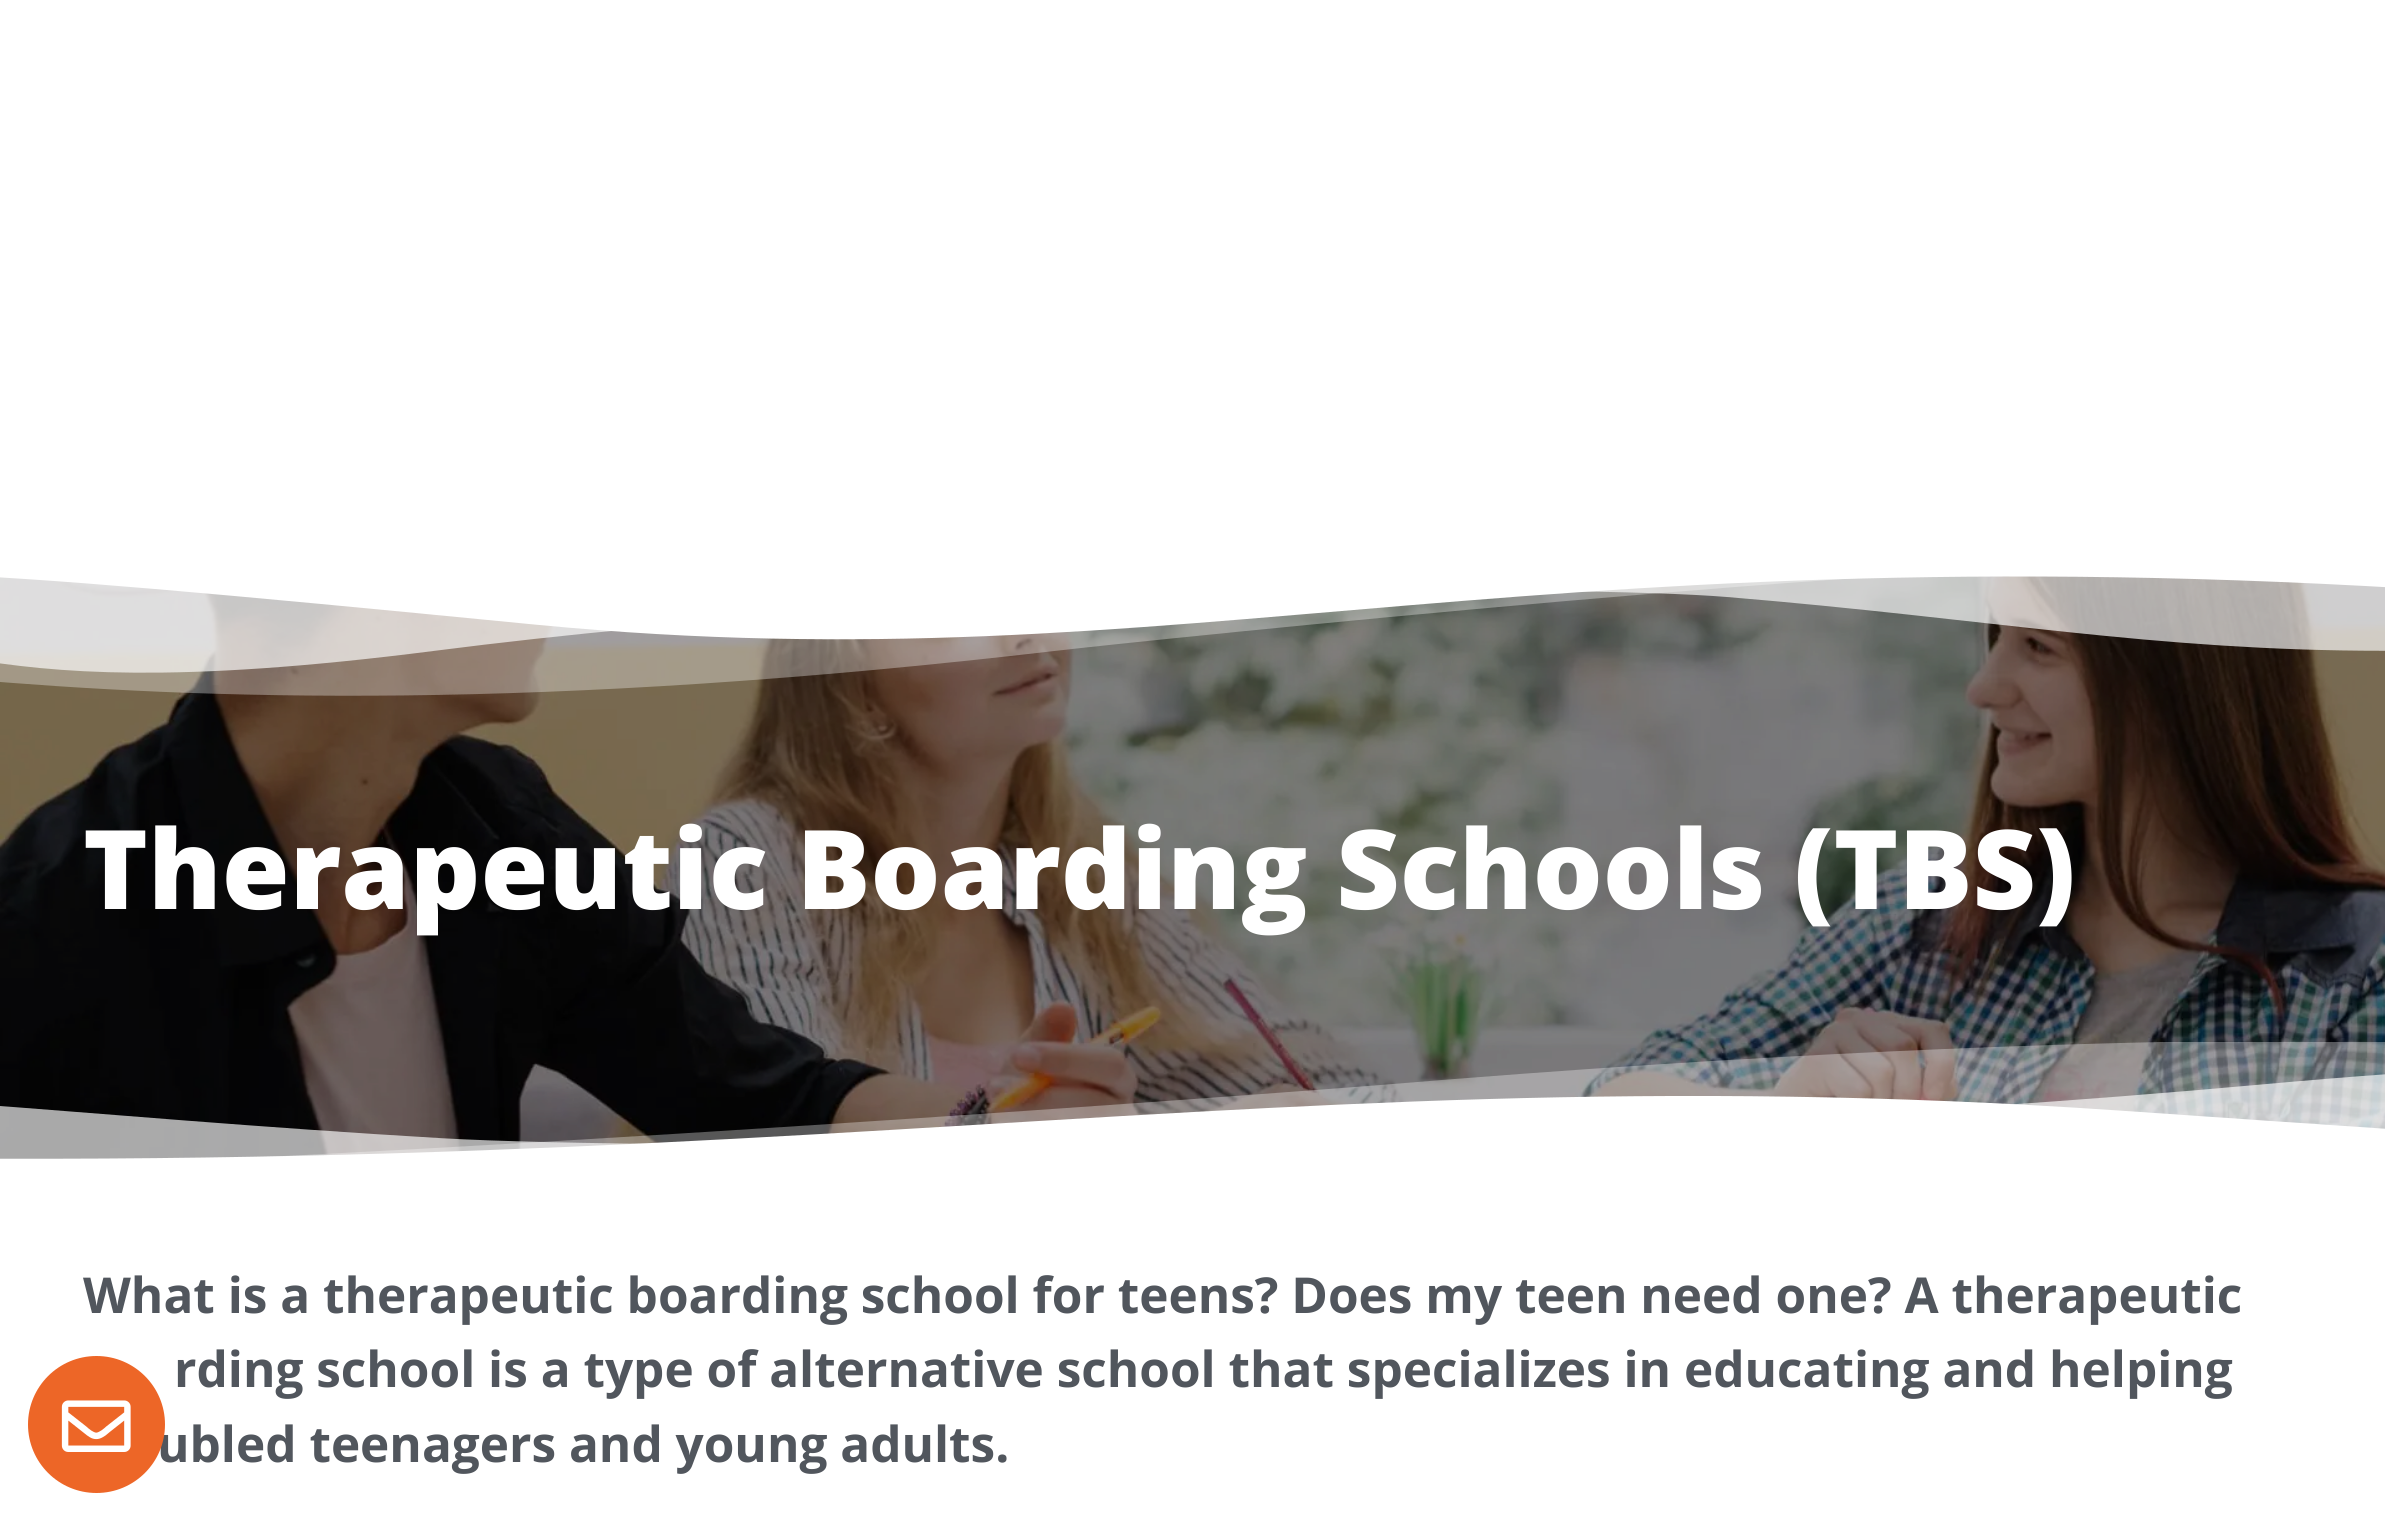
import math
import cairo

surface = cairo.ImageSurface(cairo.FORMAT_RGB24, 2385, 1540)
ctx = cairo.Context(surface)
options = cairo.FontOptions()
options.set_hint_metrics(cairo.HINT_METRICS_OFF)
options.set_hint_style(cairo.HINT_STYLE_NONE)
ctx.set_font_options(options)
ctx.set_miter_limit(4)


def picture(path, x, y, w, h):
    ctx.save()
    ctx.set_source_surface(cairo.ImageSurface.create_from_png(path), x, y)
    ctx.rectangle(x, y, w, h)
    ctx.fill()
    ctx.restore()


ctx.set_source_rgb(1, 1, 1)
ctx.paint()
picture("img1.png", 0, 576, 2385, 583)
picture("img2.png", 0, 561, 2385, 135)
ctx.select_font_face("Open Sans ExtraBold")
ctx.set_font_size(110)
ctx.set_source_rgb(1, 1, 1)
ctx.move_to(83, 909)
ctx.show_text("Therapeutic Boarding Schools (TBS)")
picture("img3.png", 0, 1042, 2385, 135)
ctx.select_font_face("Open Sans", cairo.FONT_SLANT_NORMAL, cairo.FONT_WEIGHT_BOLD)
ctx.set_font_size(49.5)
ctx.set_source_rgb(0.318, 0.337, 0.365)
ctx.move_to(83, 1313)
ctx.show_text("What is a therapeutic boarding school for teens? Does my teen need one? A therapeutic")
ctx.move_to(174, 1387)
ctx.show_text("rding school is a type of alternative school that specializes in educating and helping")
ctx.move_to(157, 1462)
ctx.show_text("ubled teenagers and young adults.")
ctx.set_source_rgb(0.929, 0.4, 0.153)
ctx.new_path()
ctx.arc(96.5, 1424.5, 68.5, 0, 2 * math.pi)
ctx.fill()
picture("img4.png", 61, 1400, 70, 52)
surface.write_to_png("page.png")
